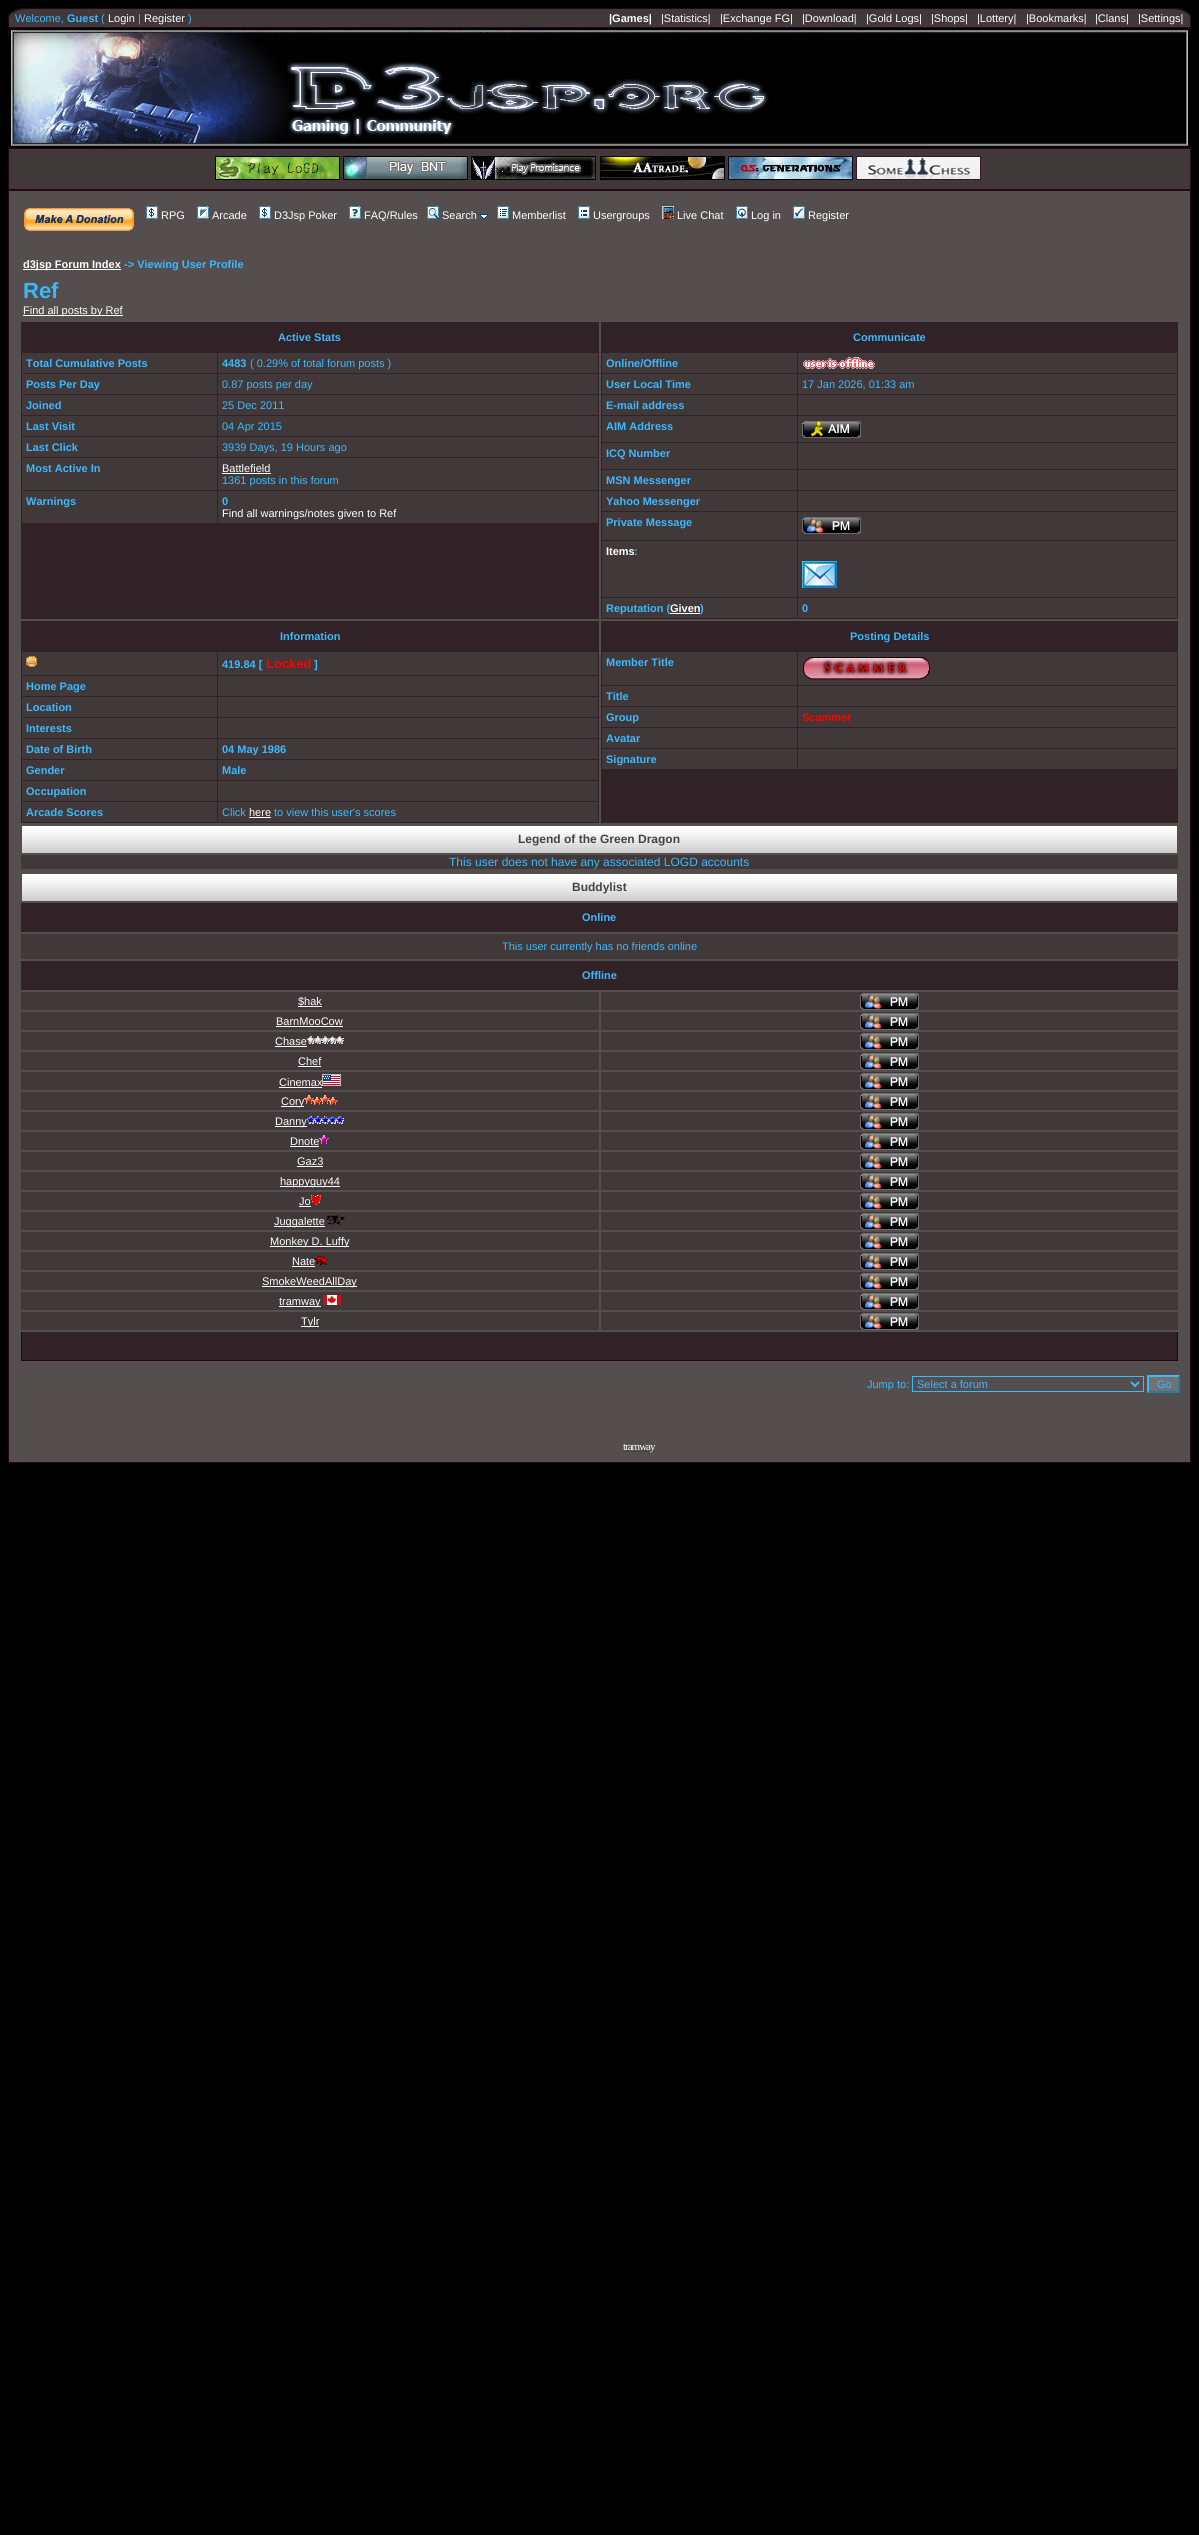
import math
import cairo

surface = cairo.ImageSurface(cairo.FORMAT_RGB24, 1199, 2535)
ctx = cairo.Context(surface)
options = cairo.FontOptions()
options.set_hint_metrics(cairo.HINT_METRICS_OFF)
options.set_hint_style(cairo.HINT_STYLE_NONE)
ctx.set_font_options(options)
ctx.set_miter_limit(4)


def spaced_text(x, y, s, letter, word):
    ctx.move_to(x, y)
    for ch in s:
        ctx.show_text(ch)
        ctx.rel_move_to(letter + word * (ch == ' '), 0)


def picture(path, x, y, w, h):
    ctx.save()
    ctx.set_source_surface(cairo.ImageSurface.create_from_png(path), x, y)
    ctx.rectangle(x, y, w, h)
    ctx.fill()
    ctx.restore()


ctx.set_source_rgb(0, 0, 0)
ctx.paint()
ctx.set_source_rgb(0.255, 0.22, 0.224)
ctx.new_path()
ctx.move_to(28, 8)
ctx.line_to(1171, 8)
ctx.curve_to(1182, 8, 1191, 12, 1191, 18)
ctx.line_to(1191, 28)
ctx.line_to(8, 28)
ctx.line_to(8, 18)
ctx.curve_to(8, 12, 17, 8, 28, 8)
ctx.close_path()
ctx.fill()
ctx.new_path()
ctx.move_to(28, 8.5)
ctx.line_to(1171, 8.5)
ctx.curve_to(1182, 8.5, 1190.5, 13, 1190.5, 18)
ctx.line_to(1190.5, 27.5)
ctx.line_to(8.5, 27.5)
ctx.line_to(8.5, 18)
ctx.curve_to(8.5, 13, 17, 8.5, 28, 8.5)
ctx.close_path()
ctx.set_source_rgb(0.145, 0.02, 0.09)
ctx.set_line_width(1)
ctx.stroke()
ctx.select_font_face("Liberation Sans")
ctx.set_font_size(11)
ctx.set_source_rgb(0.231, 0.725, 1)
ctx.move_to(15, 22)
ctx.show_text("Welcome,")
ctx.select_font_face("Liberation Sans", cairo.FONT_SLANT_NORMAL, cairo.FONT_WEIGHT_BOLD)
ctx.move_to(67, 22)
ctx.show_text("Guest")
ctx.select_font_face("Liberation Sans")
ctx.move_to(101, 22)
ctx.show_text("(")
ctx.set_source_rgb(1, 1, 1)
ctx.move_to(108, 22)
ctx.show_text("Login")
ctx.set_source_rgb(0.231, 0.725, 1)
ctx.move_to(138, 22)
ctx.show_text("|")
ctx.set_source_rgb(1, 1, 1)
ctx.move_to(144, 22)
ctx.show_text("Register")
ctx.set_source_rgb(0.231, 0.725, 1)
ctx.move_to(188, 22)
ctx.show_text(")")
ctx.select_font_face("Liberation Sans", cairo.FONT_SLANT_NORMAL, cairo.FONT_WEIGHT_BOLD)
ctx.set_source_rgb(1, 1, 1)
ctx.move_to(609, 22)
ctx.show_text("|Games|")
ctx.select_font_face("Liberation Sans")
ctx.move_to(661, 22)
ctx.show_text("|Statistics|")
ctx.move_to(720, 22)
ctx.show_text("|Exchange FG|")
ctx.move_to(802, 22)
ctx.show_text("|Download|")
ctx.move_to(866, 22)
ctx.show_text("|Gold Logs|")
ctx.move_to(931, 22)
ctx.show_text("|Shops|")
ctx.move_to(977, 22)
ctx.show_text("|Lottery|")
ctx.move_to(1026, 22)
ctx.show_text("|Bookmarks|")
ctx.move_to(1095, 22)
ctx.show_text("|Clans|")
ctx.move_to(1138, 22)
ctx.show_text("|Settings|")
picture("img1.png", 928, 30, 258, 118)
picture("img2.png", 8, 28, 920, 120)
picture("img3.png", 1186, 28, 5, 120)
ctx.rectangle(8.5, 148.5, 1182, 41)
ctx.set_source_rgb(0.145, 0.02, 0.09)
ctx.stroke()
ctx.set_source_rgb(0.255, 0.22, 0.224)
ctx.rectangle(9, 149, 1181, 40)
ctx.fill()
picture("img4.png", 215, 156, 125, 24)
picture("img5.png", 343, 156, 125, 24)
picture("img6.png", 471, 156, 125, 24)
picture("img7.png", 600, 156, 125, 24)
picture("img8.png", 728, 156, 125, 24)
picture("img9.png", 856, 156, 125, 24)
ctx.set_source_rgb(0.329, 0.306, 0.31)
ctx.rectangle(8.5, 190.5, 1182, 1272)
ctx.fill_preserve()
ctx.set_source_rgb(0.145, 0.02, 0.09)
ctx.stroke()
picture("img10.png", 24, 208, 110, 23)
picture("img11.png", 146, 206, 12, 13)
ctx.set_source_rgb(1, 1, 1)
ctx.move_to(161, 219)
ctx.show_text("RPG")
picture("img12.png", 197, 206, 12, 13)
ctx.move_to(212, 219)
ctx.show_text("Arcade")
picture("img11.png", 259, 206, 12, 13)
ctx.move_to(274, 219)
ctx.show_text("D3Jsp Poker")
picture("img13.png", 349, 206, 12, 13)
ctx.move_to(364, 219)
ctx.show_text("FAQ/Rules")
picture("img14.png", 427, 206, 12, 13)
ctx.move_to(442, 219)
ctx.show_text("Search")
picture("img15.png", 480, 214, 8, 5)
picture("img16.png", 497, 206, 12, 13)
ctx.move_to(512, 219)
ctx.show_text("Memberlist")
picture("img17.png", 578, 206, 12, 13)
ctx.move_to(593, 219)
ctx.show_text("Usergroups")
picture("img18.png", 662, 206, 12, 13)
ctx.move_to(677, 219)
ctx.show_text("Live Chat")
picture("img19.png", 736, 206, 12, 13)
ctx.move_to(751, 219)
ctx.show_text("Log in")
picture("img20.png", 793, 206, 12, 13)
ctx.move_to(808, 219)
ctx.show_text("Register")
ctx.rectangle(23, 269, 98, 1)
ctx.fill()
ctx.select_font_face("Liberation Sans", cairo.FONT_SLANT_NORMAL, cairo.FONT_WEIGHT_BOLD)
ctx.move_to(23, 268)
ctx.show_text("d3jsp Forum Index")
ctx.set_source_rgb(0.231, 0.725, 1)
ctx.move_to(124, 268)
ctx.show_text("-> Viewing User Profile")
ctx.set_font_size(22)
ctx.move_to(23, 298)
ctx.show_text("Ref")
ctx.set_source_rgb(1, 1, 1)
ctx.rectangle(23, 315, 100, 1)
ctx.fill()
ctx.select_font_face("Liberation Sans")
ctx.set_font_size(11)
ctx.move_to(23, 314)
ctx.show_text("Find all posts by Ref")
ctx.set_source_rgb(0.188, 0.133, 0.149)
ctx.rectangle(21, 322, 578, 297)
ctx.fill()
ctx.select_font_face("Liberation Sans", cairo.FONT_SLANT_NORMAL, cairo.FONT_WEIGHT_BOLD)
ctx.set_source_rgb(0.231, 0.725, 1)
ctx.move_to(278, 341)
ctx.show_text("Active Stats")
ctx.set_source_rgb(0.255, 0.22, 0.224)
ctx.rectangle(22, 353, 195, 20)
ctx.fill()
ctx.set_source_rgb(0.231, 0.725, 1)
ctx.move_to(26, 367)
ctx.show_text("Total Cumulative Posts")
ctx.set_source_rgb(0.255, 0.22, 0.224)
ctx.rectangle(218, 353, 380, 20)
ctx.fill()
ctx.set_source_rgb(0.231, 0.725, 1)
ctx.move_to(222, 367)
ctx.show_text("4483")
ctx.select_font_face("Liberation Sans")
ctx.move_to(250, 367)
ctx.show_text("( 0.29% of total forum posts )")
ctx.set_source_rgb(0.255, 0.22, 0.224)
ctx.rectangle(22, 374, 195, 20)
ctx.fill()
ctx.select_font_face("Liberation Sans", cairo.FONT_SLANT_NORMAL, cairo.FONT_WEIGHT_BOLD)
ctx.set_source_rgb(0.231, 0.725, 1)
ctx.move_to(26, 388)
ctx.show_text("Posts Per Day")
ctx.set_source_rgb(0.255, 0.22, 0.224)
ctx.rectangle(218, 374, 380, 20)
ctx.fill()
ctx.select_font_face("Liberation Sans")
ctx.set_source_rgb(0.231, 0.725, 1)
ctx.move_to(222, 388)
ctx.show_text("0.87 posts per day")
ctx.set_source_rgb(0.255, 0.22, 0.224)
ctx.rectangle(22, 395, 195, 20)
ctx.fill()
ctx.select_font_face("Liberation Sans", cairo.FONT_SLANT_NORMAL, cairo.FONT_WEIGHT_BOLD)
ctx.set_source_rgb(0.231, 0.725, 1)
ctx.move_to(26, 409)
ctx.show_text("Joined")
ctx.set_source_rgb(0.255, 0.22, 0.224)
ctx.rectangle(218, 395, 380, 20)
ctx.fill()
ctx.select_font_face("Liberation Sans")
ctx.set_source_rgb(0.231, 0.725, 1)
ctx.move_to(222, 409)
ctx.show_text("25 Dec 2011")
ctx.set_source_rgb(0.255, 0.22, 0.224)
ctx.rectangle(22, 416, 195, 20)
ctx.fill()
ctx.select_font_face("Liberation Sans", cairo.FONT_SLANT_NORMAL, cairo.FONT_WEIGHT_BOLD)
ctx.set_source_rgb(0.231, 0.725, 1)
ctx.move_to(26, 430)
ctx.show_text("Last Visit")
ctx.set_source_rgb(0.255, 0.22, 0.224)
ctx.rectangle(218, 416, 380, 20)
ctx.fill()
ctx.select_font_face("Liberation Sans")
ctx.set_source_rgb(0.231, 0.725, 1)
ctx.move_to(222, 430)
ctx.show_text("04 Apr 2015")
ctx.set_source_rgb(0.255, 0.22, 0.224)
ctx.rectangle(22, 437, 195, 20)
ctx.fill()
ctx.select_font_face("Liberation Sans", cairo.FONT_SLANT_NORMAL, cairo.FONT_WEIGHT_BOLD)
ctx.set_source_rgb(0.231, 0.725, 1)
ctx.move_to(26, 451)
ctx.show_text("Last Click")
ctx.set_source_rgb(0.255, 0.22, 0.224)
ctx.rectangle(218, 437, 380, 20)
ctx.fill()
ctx.select_font_face("Liberation Sans")
ctx.set_source_rgb(0.231, 0.725, 1)
ctx.move_to(222, 451)
ctx.show_text("3939 Days, 19 Hours ago")
ctx.set_source_rgb(0.255, 0.22, 0.224)
ctx.rectangle(22, 458, 195, 32)
ctx.fill()
ctx.select_font_face("Liberation Sans", cairo.FONT_SLANT_NORMAL, cairo.FONT_WEIGHT_BOLD)
ctx.set_source_rgb(0.231, 0.725, 1)
ctx.move_to(26, 472)
ctx.show_text("Most Active In")
ctx.set_source_rgb(0.255, 0.22, 0.224)
ctx.rectangle(218, 458, 380, 32)
ctx.fill()
ctx.select_font_face("Liberation Sans")
ctx.set_source_rgb(1, 1, 1)
ctx.move_to(222, 472)
ctx.show_text("Battlefield")
ctx.rectangle(222, 473, 49, 1)
ctx.fill()
ctx.set_source_rgb(0.231, 0.725, 1)
ctx.move_to(222, 484)
ctx.show_text("1361 posts in this forum")
ctx.set_source_rgb(0.255, 0.22, 0.224)
ctx.rectangle(22, 491, 195, 32)
ctx.fill()
ctx.select_font_face("Liberation Sans", cairo.FONT_SLANT_NORMAL, cairo.FONT_WEIGHT_BOLD)
ctx.set_source_rgb(0.231, 0.725, 1)
ctx.move_to(26, 505)
ctx.show_text("Warnings")
ctx.set_source_rgb(0.255, 0.22, 0.224)
ctx.rectangle(218, 491, 380, 32)
ctx.fill()
ctx.set_source_rgb(0.231, 0.725, 1)
ctx.move_to(222, 505)
ctx.show_text("0")
ctx.select_font_face("Liberation Sans")
ctx.set_source_rgb(1, 1, 1)
ctx.move_to(222, 517)
ctx.show_text("Find all warnings/notes given to Ref")
ctx.set_source_rgb(0.188, 0.133, 0.149)
ctx.rectangle(601, 322, 577, 297)
ctx.fill()
ctx.select_font_face("Liberation Sans", cairo.FONT_SLANT_NORMAL, cairo.FONT_WEIGHT_BOLD)
ctx.set_source_rgb(0.231, 0.725, 1)
ctx.move_to(853, 341)
ctx.show_text("Communicate")
ctx.set_source_rgb(0.255, 0.22, 0.224)
ctx.rectangle(602, 353, 195, 20)
ctx.fill()
ctx.set_source_rgb(0.231, 0.725, 1)
ctx.move_to(606, 367)
ctx.show_text("Online/Offline")
ctx.set_source_rgb(0.255, 0.22, 0.224)
ctx.rectangle(798, 353, 379, 20)
ctx.fill()
picture("img21.png", 803, 357, 72, 12)
ctx.rectangle(602, 374, 195, 20)
ctx.fill()
ctx.set_source_rgb(0.231, 0.725, 1)
ctx.move_to(606, 388)
ctx.show_text("User Local Time")
ctx.set_source_rgb(0.255, 0.22, 0.224)
ctx.rectangle(798, 374, 379, 20)
ctx.fill()
ctx.select_font_face("Liberation Sans")
ctx.set_source_rgb(0.231, 0.725, 1)
ctx.move_to(802, 388)
ctx.show_text("17 Jan 2026, 01:33 am")
ctx.set_source_rgb(0.255, 0.22, 0.224)
ctx.rectangle(602, 395, 195, 20)
ctx.fill()
ctx.select_font_face("Liberation Sans", cairo.FONT_SLANT_NORMAL, cairo.FONT_WEIGHT_BOLD)
ctx.set_source_rgb(0.231, 0.725, 1)
ctx.move_to(606, 409)
ctx.show_text("E-mail address")
ctx.set_source_rgb(0.255, 0.22, 0.224)
ctx.rectangle(798, 395, 379, 20)
ctx.fill()
ctx.rectangle(602, 416, 195, 26)
ctx.fill()
ctx.set_source_rgb(0.231, 0.725, 1)
ctx.move_to(606, 430)
ctx.show_text("AIM Address")
ctx.set_source_rgb(0.255, 0.22, 0.224)
ctx.rectangle(798, 416, 379, 26)
ctx.fill()
picture("img22.png", 802, 421, 59, 17)
ctx.rectangle(602, 443, 195, 26)
ctx.fill()
ctx.set_source_rgb(0.231, 0.725, 1)
ctx.move_to(606, 457)
ctx.show_text("ICQ Number")
ctx.set_source_rgb(0.255, 0.22, 0.224)
ctx.rectangle(798, 443, 379, 26)
ctx.fill()
ctx.rectangle(602, 470, 195, 20)
ctx.fill()
ctx.set_source_rgb(0.231, 0.725, 1)
ctx.move_to(606, 484)
ctx.show_text("MSN Messenger")
ctx.set_source_rgb(0.255, 0.22, 0.224)
ctx.rectangle(798, 470, 379, 20)
ctx.fill()
ctx.rectangle(602, 491, 195, 20)
ctx.fill()
ctx.set_source_rgb(0.231, 0.725, 1)
ctx.move_to(606, 505)
ctx.show_text("Yahoo Messenger")
ctx.set_source_rgb(0.255, 0.22, 0.224)
ctx.rectangle(798, 491, 379, 20)
ctx.fill()
ctx.rectangle(602, 512, 195, 28)
ctx.fill()
ctx.set_source_rgb(0.231, 0.725, 1)
ctx.move_to(606, 526)
ctx.show_text("Private Message")
ctx.set_source_rgb(0.255, 0.22, 0.224)
ctx.rectangle(798, 512, 379, 28)
ctx.fill()
picture("img23.png", 802, 517, 59, 17)
ctx.rectangle(602, 541, 195, 56)
ctx.fill()
ctx.set_source_rgb(1, 1, 1)
ctx.move_to(606, 555)
ctx.show_text("Items")
ctx.set_source_rgb(0.231, 0.725, 1)
ctx.move_to(634, 555)
ctx.show_text(":")
ctx.set_source_rgb(0.255, 0.22, 0.224)
ctx.rectangle(798, 541, 379, 56)
ctx.fill()
picture("img24.png", 802, 561, 35, 27)
ctx.rectangle(602, 598, 195, 20)
ctx.fill()
ctx.set_source_rgb(0.231, 0.725, 1)
ctx.move_to(606, 612)
ctx.show_text("Reputation (")
ctx.set_source_rgb(1, 1, 1)
ctx.rectangle(670, 613, 30, 1)
ctx.fill()
ctx.move_to(670, 612)
ctx.show_text("Given")
ctx.set_source_rgb(0.231, 0.725, 1)
ctx.move_to(700, 612)
ctx.show_text(")")
ctx.set_source_rgb(0.255, 0.22, 0.224)
ctx.rectangle(798, 598, 379, 20)
ctx.fill()
ctx.set_source_rgb(0.231, 0.725, 1)
ctx.move_to(802, 612)
ctx.show_text("0")
ctx.set_source_rgb(0.188, 0.133, 0.149)
ctx.rectangle(21, 621, 578, 202)
ctx.fill()
ctx.set_source_rgb(0.231, 0.725, 1)
ctx.move_to(280, 640)
ctx.show_text("Information")
ctx.set_source_rgb(0.255, 0.22, 0.224)
ctx.rectangle(22, 652, 195, 23)
ctx.fill()
picture("img25.png", 26, 656, 11, 11)
ctx.rectangle(218, 652, 380, 23)
ctx.fill()
ctx.set_source_rgb(0.231, 0.725, 1)
ctx.move_to(222, 668)
ctx.show_text("419.84 [")
ctx.set_font_size(13)
ctx.set_source_rgb(1, 0, 0)
ctx.move_to(266, 668)
ctx.show_text("Locked")
ctx.set_font_size(11)
ctx.set_source_rgb(0.231, 0.725, 1)
ctx.move_to(314, 668)
ctx.show_text("]")
ctx.set_source_rgb(0.255, 0.22, 0.224)
ctx.rectangle(22, 676, 195, 20)
ctx.fill()
ctx.set_source_rgb(0.231, 0.725, 1)
ctx.move_to(26, 690)
ctx.show_text("Home Page")
ctx.set_source_rgb(0.255, 0.22, 0.224)
ctx.rectangle(218, 676, 380, 20)
ctx.fill()
ctx.rectangle(22, 697, 195, 20)
ctx.fill()
ctx.set_source_rgb(0.231, 0.725, 1)
ctx.move_to(26, 711)
ctx.show_text("Location")
ctx.set_source_rgb(0.255, 0.22, 0.224)
ctx.rectangle(218, 697, 380, 20)
ctx.fill()
ctx.rectangle(22, 718, 195, 20)
ctx.fill()
ctx.set_source_rgb(0.231, 0.725, 1)
ctx.move_to(26, 732)
ctx.show_text("Interests")
ctx.set_source_rgb(0.255, 0.22, 0.224)
ctx.rectangle(218, 718, 380, 20)
ctx.fill()
ctx.rectangle(22, 739, 195, 20)
ctx.fill()
ctx.set_source_rgb(0.231, 0.725, 1)
ctx.move_to(26, 753)
ctx.show_text("Date of Birth")
ctx.set_source_rgb(0.255, 0.22, 0.224)
ctx.rectangle(218, 739, 380, 20)
ctx.fill()
ctx.set_source_rgb(0.231, 0.725, 1)
ctx.move_to(222, 753)
ctx.show_text("04 May 1986")
ctx.set_source_rgb(0.255, 0.22, 0.224)
ctx.rectangle(22, 760, 195, 20)
ctx.fill()
ctx.set_source_rgb(0.231, 0.725, 1)
ctx.move_to(26, 774)
ctx.show_text("Gender")
ctx.set_source_rgb(0.255, 0.22, 0.224)
ctx.rectangle(218, 760, 380, 20)
ctx.fill()
ctx.set_source_rgb(0.231, 0.725, 1)
ctx.move_to(222, 774)
ctx.show_text("Male")
ctx.set_source_rgb(0.255, 0.22, 0.224)
ctx.rectangle(22, 781, 195, 20)
ctx.fill()
ctx.set_source_rgb(0.231, 0.725, 1)
ctx.move_to(26, 795)
ctx.show_text("Occupation")
ctx.set_source_rgb(0.255, 0.22, 0.224)
ctx.rectangle(218, 781, 380, 20)
ctx.fill()
ctx.rectangle(22, 802, 195, 20)
ctx.fill()
ctx.set_source_rgb(0.231, 0.725, 1)
ctx.move_to(26, 816)
ctx.show_text("Arcade Scores")
ctx.set_source_rgb(0.255, 0.22, 0.224)
ctx.rectangle(218, 802, 380, 20)
ctx.fill()
ctx.select_font_face("Liberation Sans")
ctx.set_source_rgb(0.231, 0.725, 1)
ctx.move_to(222, 816)
ctx.show_text("Click")
ctx.set_source_rgb(1, 1, 1)
ctx.move_to(249, 816)
ctx.show_text("here")
ctx.rectangle(249, 817, 22, 1)
ctx.fill()
ctx.set_source_rgb(0.231, 0.725, 1)
ctx.move_to(274, 816)
ctx.show_text("to view this user's scores")
ctx.set_source_rgb(0.188, 0.133, 0.149)
ctx.rectangle(601, 621, 577, 202)
ctx.fill()
ctx.select_font_face("Liberation Sans", cairo.FONT_SLANT_NORMAL, cairo.FONT_WEIGHT_BOLD)
ctx.set_source_rgb(0.231, 0.725, 1)
ctx.move_to(850, 640)
ctx.show_text("Posting Details")
ctx.set_source_rgb(0.255, 0.22, 0.224)
ctx.rectangle(602, 652, 195, 33)
ctx.fill()
ctx.set_source_rgb(0.231, 0.725, 1)
ctx.move_to(606, 666)
ctx.show_text("Member Title")
ctx.set_source_rgb(0.255, 0.22, 0.224)
ctx.rectangle(798, 652, 379, 33)
ctx.fill()
picture("img26.png", 803, 657, 127, 23)
ctx.rectangle(602, 686, 195, 20)
ctx.fill()
ctx.set_source_rgb(0.231, 0.725, 1)
ctx.move_to(606, 700)
ctx.show_text("Title")
ctx.set_source_rgb(0.255, 0.22, 0.224)
ctx.rectangle(798, 686, 379, 20)
ctx.fill()
ctx.rectangle(602, 707, 195, 20)
ctx.fill()
ctx.set_source_rgb(0.231, 0.725, 1)
ctx.move_to(606, 721)
ctx.show_text("Group")
ctx.set_source_rgb(0.255, 0.22, 0.224)
ctx.rectangle(798, 707, 379, 20)
ctx.fill()
ctx.set_source_rgb(1, 0, 0)
ctx.move_to(802, 721)
ctx.show_text("Scammer")
ctx.set_source_rgb(0.255, 0.22, 0.224)
ctx.rectangle(602, 728, 195, 20)
ctx.fill()
ctx.set_source_rgb(0.231, 0.725, 1)
ctx.move_to(606, 742)
ctx.show_text("Avatar")
ctx.set_source_rgb(0.255, 0.22, 0.224)
ctx.rectangle(798, 728, 379, 20)
ctx.fill()
ctx.rectangle(602, 749, 195, 20)
ctx.fill()
ctx.set_source_rgb(0.231, 0.725, 1)
ctx.move_to(606, 763)
ctx.show_text("Signature")
ctx.set_source_rgb(0.255, 0.22, 0.224)
ctx.rectangle(798, 749, 379, 20)
ctx.fill()
picture("img27.png", 22, 826, 1155, 27)
ctx.set_font_size(12)
ctx.set_source_rgb(0.267, 0.267, 0.267)
ctx.move_to(518, 843)
ctx.show_text("Legend of the Green Dragon")
ctx.set_source_rgb(0.255, 0.22, 0.224)
ctx.rectangle(21, 855, 1157, 14)
ctx.fill()
ctx.select_font_face("Liberation Sans")
ctx.set_source_rgb(0.231, 0.725, 1)
ctx.move_to(449, 866)
ctx.show_text("This user does not have any associated LOGD accounts")
picture("img27.png", 22, 874, 1155, 27)
ctx.select_font_face("Liberation Sans", cairo.FONT_SLANT_NORMAL, cairo.FONT_WEIGHT_BOLD)
ctx.set_source_rgb(0.267, 0.267, 0.267)
ctx.move_to(572, 891)
ctx.show_text("Buddylist")
ctx.set_source_rgb(0.188, 0.133, 0.149)
ctx.rectangle(21, 903, 1157, 29)
ctx.fill()
ctx.set_font_size(11)
ctx.set_source_rgb(0.231, 0.725, 1)
ctx.move_to(582, 921)
ctx.show_text("Online")
ctx.set_source_rgb(0.255, 0.22, 0.224)
ctx.rectangle(21, 934, 1157, 25)
ctx.fill()
ctx.select_font_face("Liberation Sans")
ctx.set_source_rgb(0.231, 0.725, 1)
ctx.move_to(502, 950)
ctx.show_text("This user currently has no friends online")
ctx.set_source_rgb(0.188, 0.133, 0.149)
ctx.rectangle(21, 961, 1157, 29)
ctx.fill()
ctx.select_font_face("Liberation Sans", cairo.FONT_SLANT_NORMAL, cairo.FONT_WEIGHT_BOLD)
ctx.set_source_rgb(0.231, 0.725, 1)
ctx.move_to(582, 979)
ctx.show_text("Offline")
ctx.set_source_rgb(0.255, 0.22, 0.224)
ctx.rectangle(21, 992, 578, 18)
ctx.fill()
ctx.select_font_face("Liberation Sans")
ctx.set_source_rgb(1, 1, 1)
ctx.move_to(298, 1005)
ctx.show_text("$hak")
ctx.rectangle(298, 1006, 24, 1)
ctx.fill()
ctx.set_source_rgb(0.255, 0.22, 0.224)
ctx.rectangle(601, 992, 577, 18)
ctx.fill()
picture("img23.png", 860, 993, 59, 17)
ctx.rectangle(21, 1012, 578, 18)
ctx.fill()
ctx.set_source_rgb(1, 1, 1)
ctx.move_to(276, 1025)
ctx.show_text("BarnMooCow")
ctx.rectangle(276, 1026, 67, 1)
ctx.fill()
ctx.set_source_rgb(0.255, 0.22, 0.224)
ctx.rectangle(601, 1012, 577, 18)
ctx.fill()
picture("img23.png", 860, 1013, 59, 17)
ctx.rectangle(21, 1032, 578, 18)
ctx.fill()
ctx.set_source_rgb(1, 1, 1)
ctx.move_to(275, 1045)
ctx.show_text("Chase")
ctx.rectangle(275, 1046, 32, 1)
ctx.fill()
picture("img28.png", 307, 1036, 37, 8)
ctx.set_source_rgb(0.255, 0.22, 0.224)
ctx.rectangle(601, 1032, 577, 18)
ctx.fill()
picture("img23.png", 860, 1033, 59, 17)
ctx.rectangle(21, 1052, 578, 18)
ctx.fill()
ctx.set_source_rgb(1, 1, 1)
ctx.move_to(298, 1065)
ctx.show_text("Chef")
ctx.rectangle(298, 1066, 23, 1)
ctx.fill()
ctx.set_source_rgb(0.255, 0.22, 0.224)
ctx.rectangle(601, 1052, 577, 18)
ctx.fill()
picture("img23.png", 860, 1053, 59, 17)
ctx.rectangle(21, 1072, 578, 18)
ctx.fill()
ctx.set_source_rgb(1, 1, 1)
ctx.move_to(279, 1086)
ctx.show_text("Cinemax")
ctx.rectangle(279, 1087, 43, 1)
ctx.fill()
picture("img29.png", 322, 1074, 19, 12)
ctx.set_source_rgb(0.255, 0.22, 0.224)
ctx.rectangle(601, 1072, 577, 18)
ctx.fill()
picture("img23.png", 860, 1073, 59, 17)
ctx.rectangle(21, 1092, 578, 18)
ctx.fill()
ctx.set_source_rgb(1, 1, 1)
ctx.rectangle(281, 1106, 23, 1)
ctx.fill()
ctx.move_to(281, 1105)
ctx.show_text("Cory")
picture("img30.png", 304, 1095, 34, 10)
ctx.set_source_rgb(0.255, 0.22, 0.224)
ctx.rectangle(601, 1092, 577, 18)
ctx.fill()
picture("img23.png", 860, 1093, 59, 17)
ctx.rectangle(21, 1112, 578, 18)
ctx.fill()
ctx.set_source_rgb(1, 1, 1)
ctx.rectangle(275, 1126, 32, 1)
ctx.fill()
ctx.move_to(275, 1125)
ctx.show_text("Danny")
picture("img31.png", 307, 1116, 37, 8)
ctx.set_source_rgb(0.255, 0.22, 0.224)
ctx.rectangle(601, 1112, 577, 18)
ctx.fill()
picture("img23.png", 860, 1113, 59, 17)
ctx.rectangle(21, 1132, 578, 18)
ctx.fill()
ctx.set_source_rgb(1, 1, 1)
ctx.move_to(290, 1145)
ctx.show_text("Dnote")
ctx.rectangle(290, 1146, 29, 1)
ctx.fill()
picture("img32.png", 319, 1135, 10, 9)
ctx.set_source_rgb(0.255, 0.22, 0.224)
ctx.rectangle(601, 1132, 577, 18)
ctx.fill()
picture("img23.png", 860, 1133, 59, 17)
ctx.rectangle(21, 1152, 578, 18)
ctx.fill()
ctx.set_source_rgb(1, 1, 1)
ctx.move_to(297, 1165)
ctx.show_text("Gaz3")
ctx.rectangle(297, 1166, 26, 1)
ctx.fill()
ctx.set_source_rgb(0.255, 0.22, 0.224)
ctx.rectangle(601, 1152, 577, 18)
ctx.fill()
picture("img23.png", 860, 1153, 59, 17)
ctx.rectangle(21, 1172, 578, 18)
ctx.fill()
ctx.set_source_rgb(1, 1, 1)
ctx.rectangle(280, 1186, 60, 1)
ctx.fill()
ctx.move_to(280, 1185)
ctx.show_text("happyguy44")
ctx.set_source_rgb(0.255, 0.22, 0.224)
ctx.rectangle(601, 1172, 577, 18)
ctx.fill()
picture("img23.png", 860, 1173, 59, 17)
ctx.rectangle(21, 1192, 578, 18)
ctx.fill()
ctx.set_source_rgb(1, 1, 1)
ctx.move_to(299, 1205)
ctx.show_text("Jo")
ctx.rectangle(299, 1206, 12, 1)
ctx.fill()
picture("img33.png", 311, 1195, 10, 10)
ctx.set_source_rgb(0.255, 0.22, 0.224)
ctx.rectangle(601, 1192, 577, 18)
ctx.fill()
picture("img23.png", 860, 1193, 59, 17)
ctx.rectangle(21, 1212, 578, 18)
ctx.fill()
ctx.set_source_rgb(1, 1, 1)
ctx.rectangle(274, 1226, 51, 1)
ctx.fill()
ctx.move_to(274, 1225)
ctx.show_text("Juggalette")
picture("img34.png", 326, 1215, 19, 10)
ctx.set_source_rgb(0.255, 0.22, 0.224)
ctx.rectangle(601, 1212, 577, 18)
ctx.fill()
picture("img23.png", 860, 1213, 59, 17)
ctx.rectangle(21, 1232, 578, 18)
ctx.fill()
ctx.set_source_rgb(1, 1, 1)
ctx.rectangle(270, 1246, 79, 1)
ctx.fill()
ctx.move_to(270, 1245)
ctx.show_text("Monkey D. Luffy")
ctx.set_source_rgb(0.255, 0.22, 0.224)
ctx.rectangle(601, 1232, 577, 18)
ctx.fill()
picture("img23.png", 860, 1233, 59, 17)
ctx.rectangle(21, 1252, 578, 18)
ctx.fill()
ctx.set_source_rgb(1, 1, 1)
ctx.move_to(292, 1265)
ctx.show_text("Nate")
ctx.rectangle(292, 1266, 23, 1)
ctx.fill()
picture("img35.png", 315, 1255, 13, 10)
ctx.set_source_rgb(0.255, 0.22, 0.224)
ctx.rectangle(601, 1252, 577, 18)
ctx.fill()
picture("img23.png", 860, 1253, 59, 17)
ctx.rectangle(21, 1272, 578, 18)
ctx.fill()
ctx.set_source_rgb(1, 1, 1)
ctx.rectangle(262, 1286, 95, 1)
ctx.fill()
ctx.move_to(262, 1285)
ctx.show_text("SmokeWeedAllDay")
ctx.set_source_rgb(0.255, 0.22, 0.224)
ctx.rectangle(601, 1272, 577, 18)
ctx.fill()
picture("img23.png", 860, 1273, 59, 17)
ctx.rectangle(21, 1292, 578, 18)
ctx.fill()
ctx.set_source_rgb(1, 1, 1)
ctx.rectangle(279, 1306, 42, 1)
ctx.fill()
ctx.move_to(279, 1305)
ctx.show_text("tramway")
picture("img36.png", 323, 1295, 18, 10)
ctx.set_source_rgb(0.255, 0.22, 0.224)
ctx.rectangle(601, 1292, 577, 18)
ctx.fill()
picture("img23.png", 860, 1293, 59, 17)
ctx.rectangle(21, 1312, 578, 18)
ctx.fill()
ctx.set_source_rgb(1, 1, 1)
ctx.rectangle(301, 1326, 18, 1)
ctx.fill()
ctx.move_to(301, 1325)
ctx.show_text("Tylr")
ctx.set_source_rgb(0.255, 0.22, 0.224)
ctx.rectangle(601, 1312, 577, 18)
ctx.fill()
picture("img23.png", 860, 1313, 59, 17)
ctx.set_source_rgb(0.188, 0.133, 0.149)
ctx.rectangle(22, 1332, 1155, 28)
ctx.fill()
ctx.set_source_rgb(0.145, 0.02, 0.09)
ctx.rectangle(1177, 1332, 1, 29)
ctx.fill()
ctx.rectangle(21, 1360, 1157, 1)
ctx.fill()
ctx.rectangle(21, 1332, 1, 29)
ctx.fill()
ctx.set_source_rgb(0.231, 0.725, 1)
ctx.move_to(867, 1388)
ctx.show_text("Jump to:")
ctx.rectangle(912.5, 1376.5, 231, 15)
ctx.stroke()
ctx.new_path()
ctx.move_to(1131, 1382)
ctx.line_to(1135, 1386)
ctx.line_to(1139, 1382)
ctx.set_line_width(2)
ctx.stroke()
ctx.move_to(917, 1388)
ctx.show_text("Select a forum")
ctx.set_source_rgb(0.455, 0.443, 0.439)
ctx.rectangle(1147, 1375, 33, 18)
ctx.fill()
ctx.set_source_rgb(0.231, 0.725, 1)
ctx.new_path()
ctx.move_to(1147, 1375)
ctx.line_to(1180, 1375)
ctx.line_to(1178, 1377)
ctx.line_to(1149, 1377)
ctx.close_path()
ctx.fill()
ctx.set_source_rgb(0.153, 0.482, 0.667)
ctx.new_path()
ctx.move_to(1180, 1375)
ctx.line_to(1180, 1393)
ctx.line_to(1178, 1391)
ctx.line_to(1178, 1377)
ctx.close_path()
ctx.fill()
ctx.new_path()
ctx.move_to(1180, 1393)
ctx.line_to(1147, 1393)
ctx.line_to(1149, 1391)
ctx.line_to(1178, 1391)
ctx.close_path()
ctx.fill()
ctx.set_source_rgb(0.231, 0.725, 1)
ctx.new_path()
ctx.move_to(1147, 1393)
ctx.line_to(1147, 1375)
ctx.line_to(1149, 1377)
ctx.line_to(1149, 1391)
ctx.close_path()
ctx.fill()
ctx.move_to(1157, 1388)
ctx.show_text("Go")
ctx.set_source_rgb(0.267, 0.267, 0.267)
ctx.rectangle(623, 1451, 32, 1)
ctx.fill()
ctx.select_font_face("Liberation Serif")
ctx.set_source_rgb(1, 1, 1)
spaced_text(623, 1450, "tramway", -1, 0)
surface.write_to_png("page.png")
